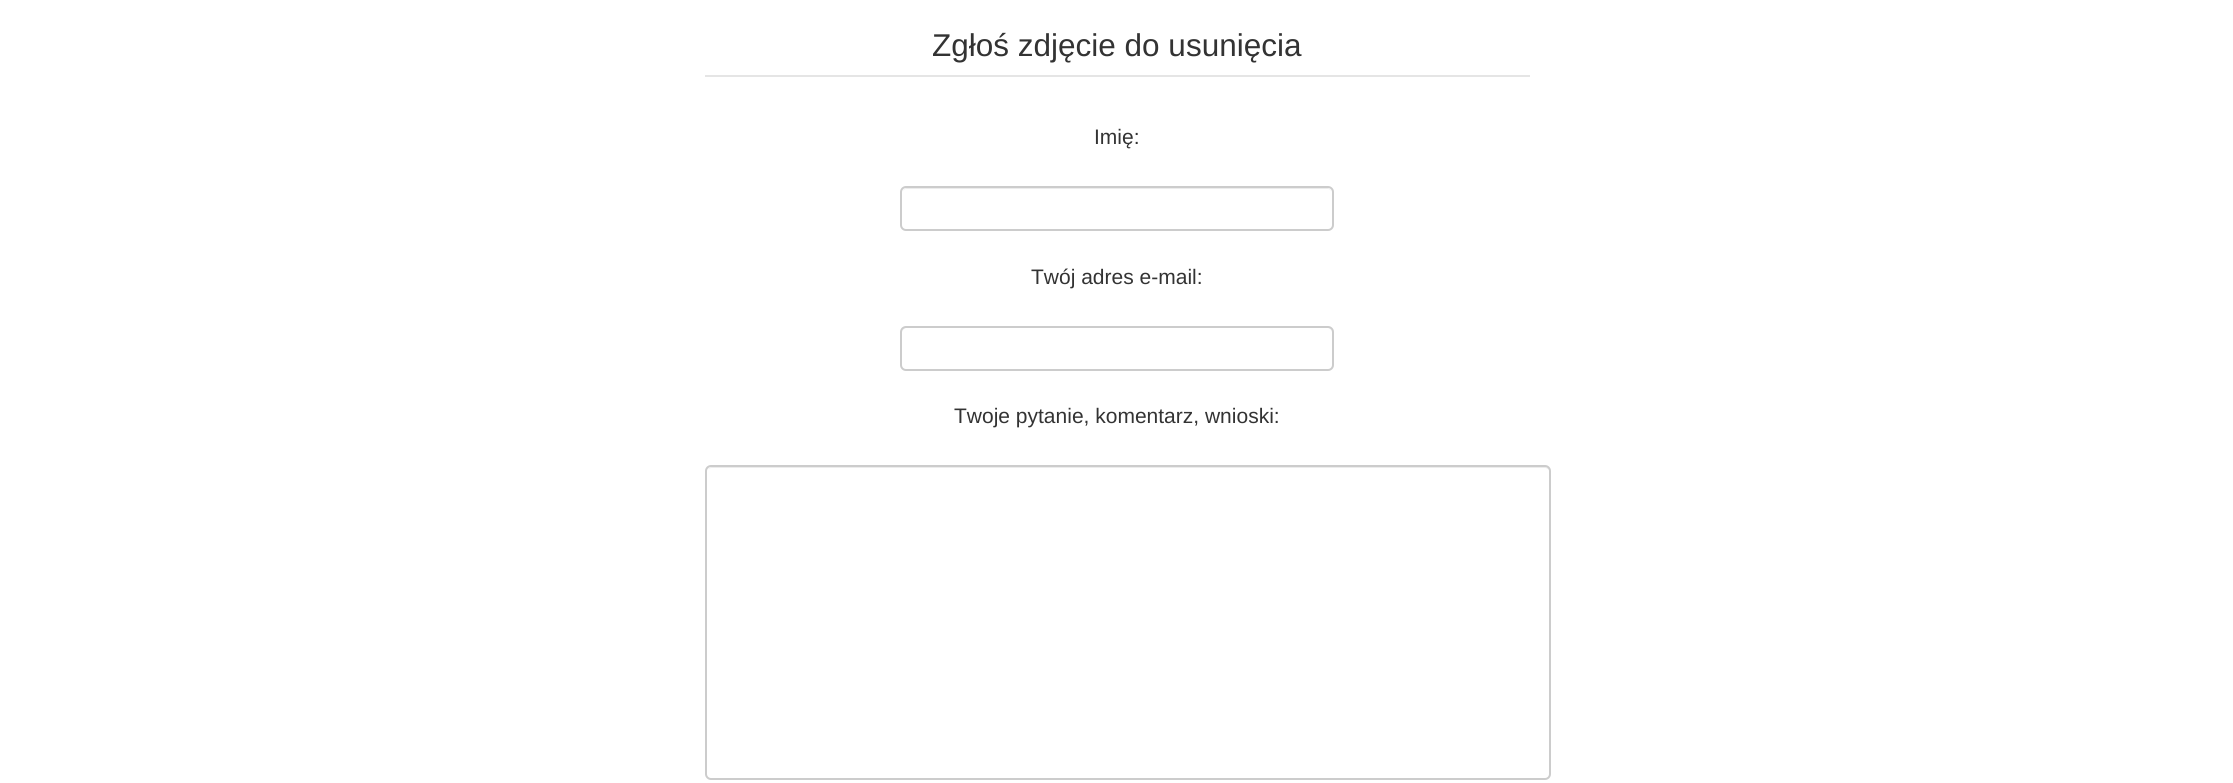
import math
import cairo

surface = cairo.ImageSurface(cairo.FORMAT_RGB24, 2233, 783)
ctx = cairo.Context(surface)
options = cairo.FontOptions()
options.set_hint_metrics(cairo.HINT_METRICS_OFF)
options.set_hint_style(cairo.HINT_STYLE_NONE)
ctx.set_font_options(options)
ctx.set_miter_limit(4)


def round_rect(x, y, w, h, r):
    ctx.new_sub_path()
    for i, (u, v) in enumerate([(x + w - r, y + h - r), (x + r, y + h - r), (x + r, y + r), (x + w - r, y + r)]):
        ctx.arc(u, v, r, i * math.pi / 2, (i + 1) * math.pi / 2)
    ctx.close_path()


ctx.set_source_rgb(1, 1, 1)
ctx.paint()
ctx.set_source_rgb(0.898, 0.898, 0.898)
ctx.rectangle(705, 75, 825, 2)
ctx.fill()
ctx.select_font_face("Liberation Sans")
ctx.set_font_size(31.5)
ctx.set_source_rgb(0.2, 0.2, 0.2)
ctx.move_to(932, 56)
ctx.show_text("Zgłoś zdjęcie do usunięcia")
ctx.set_font_size(21)
ctx.move_to(1094, 144)
ctx.show_text("Imię:")
ctx.set_source_rgb(0.925, 0.925, 0.925)
ctx.new_path()
ctx.move_to(906, 189)
ctx.line_to(1328, 189)
ctx.curve_to(1330, 189, 1332, 191, 1332, 194)
ctx.curve_to(1332, 191, 1330, 188, 1327, 188)
ctx.line_to(907, 188)
ctx.curve_to(904, 188, 902, 191, 902, 194)
ctx.curve_to(902, 191, 904, 189, 906, 189)
ctx.close_path()
ctx.fill()
round_rect(901, 187, 432, 43, 5)
ctx.set_source_rgb(0.8, 0.8, 0.8)
ctx.stroke()
ctx.set_source_rgb(0.2, 0.2, 0.2)
ctx.move_to(1031, 284)
ctx.show_text("Twój adres e-mail:")
ctx.set_source_rgb(0.925, 0.925, 0.925)
ctx.new_path()
ctx.move_to(906, 328)
ctx.line_to(1328, 328)
ctx.curve_to(1330, 328, 1332, 331, 1332, 333)
ctx.curve_to(1332, 330, 1330, 327, 1327, 327)
ctx.line_to(907, 327)
ctx.curve_to(904, 327, 902, 330, 902, 333)
ctx.curve_to(902, 331, 904, 328, 906, 328)
ctx.close_path()
ctx.fill()
round_rect(901, 327, 432, 43, 5)
ctx.set_source_rgb(0.8, 0.8, 0.8)
ctx.stroke()
ctx.set_source_rgb(0.2, 0.2, 0.2)
ctx.move_to(954, 423)
ctx.show_text("Twoje pytanie, komentarz, wnioski:")
ctx.set_source_rgb(0.925, 0.925, 0.925)
ctx.new_path()
ctx.move_to(711, 468)
ctx.line_to(1545, 468)
ctx.curve_to(1547, 468, 1550, 470, 1550, 472)
ctx.curve_to(1550, 469, 1548, 467, 1545, 467)
ctx.line_to(712, 467)
ctx.curve_to(710, 467, 709, 468, 708, 469)
ctx.close_path()
ctx.fill()
round_rect(706, 466, 844, 313, 5)
ctx.set_source_rgb(0.8, 0.8, 0.8)
ctx.stroke()
surface.write_to_png("page.png")
